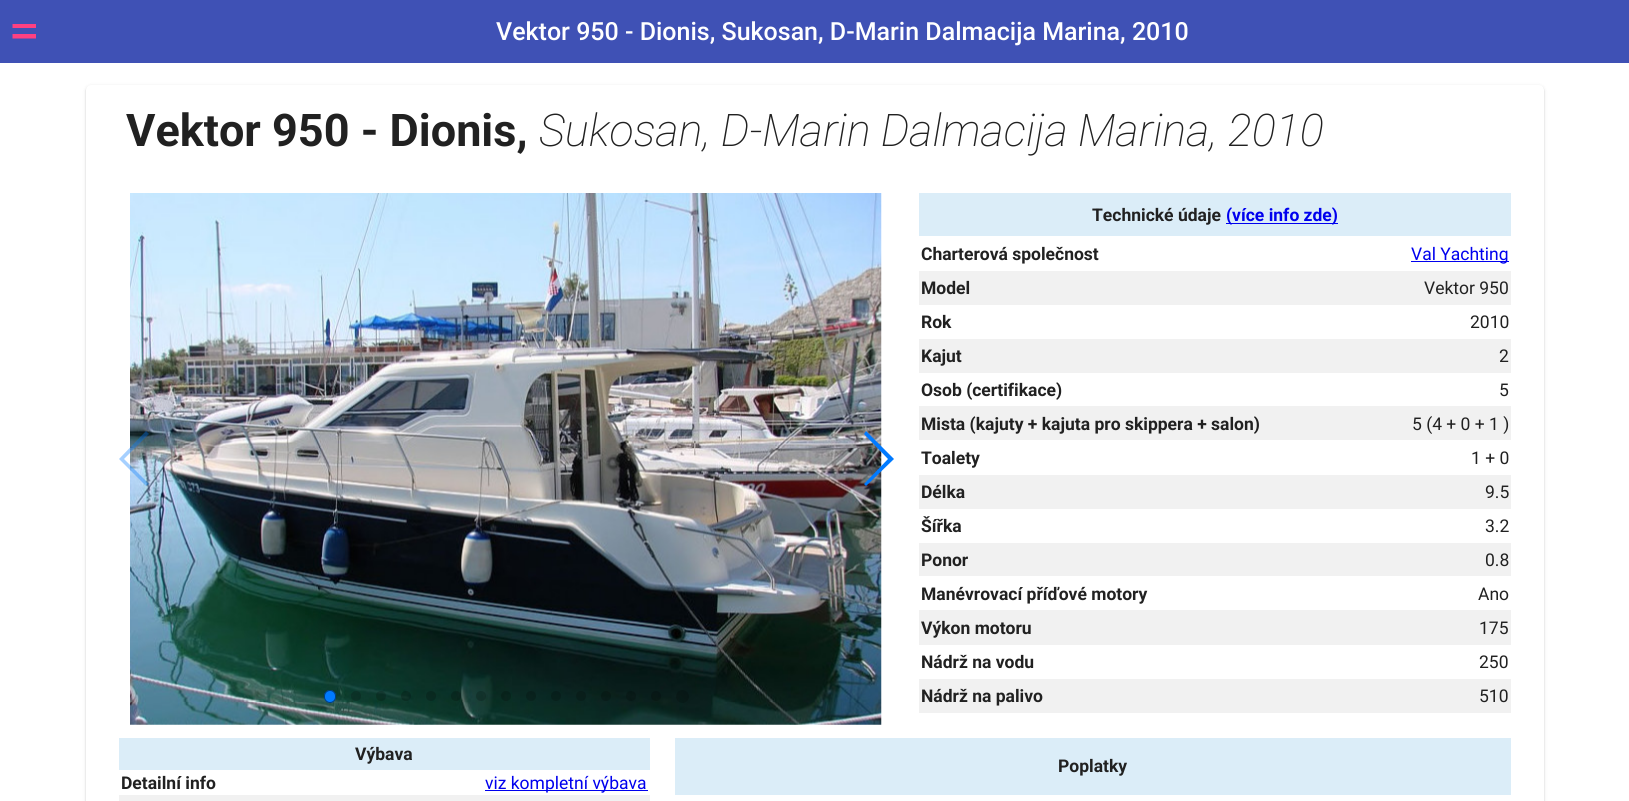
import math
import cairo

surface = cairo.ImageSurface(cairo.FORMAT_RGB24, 1629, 801)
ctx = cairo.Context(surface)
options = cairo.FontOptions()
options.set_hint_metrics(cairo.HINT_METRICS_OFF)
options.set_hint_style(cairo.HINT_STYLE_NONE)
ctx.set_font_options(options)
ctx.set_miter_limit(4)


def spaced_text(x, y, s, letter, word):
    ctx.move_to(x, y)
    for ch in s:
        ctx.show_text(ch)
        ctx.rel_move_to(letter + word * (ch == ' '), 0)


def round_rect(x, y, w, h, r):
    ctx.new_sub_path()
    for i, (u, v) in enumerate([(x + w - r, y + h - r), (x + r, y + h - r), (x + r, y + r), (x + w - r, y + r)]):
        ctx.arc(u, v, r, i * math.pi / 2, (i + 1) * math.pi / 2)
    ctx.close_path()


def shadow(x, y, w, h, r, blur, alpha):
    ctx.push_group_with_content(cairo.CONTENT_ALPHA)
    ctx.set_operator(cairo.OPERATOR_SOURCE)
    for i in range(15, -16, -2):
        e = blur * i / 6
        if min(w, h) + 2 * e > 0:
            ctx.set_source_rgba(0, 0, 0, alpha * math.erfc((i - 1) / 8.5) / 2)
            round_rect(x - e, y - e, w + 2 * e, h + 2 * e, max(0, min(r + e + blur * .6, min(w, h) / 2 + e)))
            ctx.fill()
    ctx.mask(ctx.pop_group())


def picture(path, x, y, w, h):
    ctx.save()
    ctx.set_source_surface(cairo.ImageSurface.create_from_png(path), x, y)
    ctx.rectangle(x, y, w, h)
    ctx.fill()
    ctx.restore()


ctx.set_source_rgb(1, 1, 1)
ctx.paint()
ctx.set_source_rgb(0.247, 0.318, 0.71)
ctx.rectangle(0, 0, 1629, 63)
ctx.fill()
ctx.save()
ctx.rectangle(6, 11, 30, 30)
ctx.clip()
ctx.set_source_rgb(1, 0.251, 0.506)
ctx.new_path()
ctx.move_to(12.5, 24)
ctx.line_to(50, 24)
ctx.line_to(50, 28)
ctx.line_to(12.5, 28)
ctx.close_path()
ctx.move_to(12.5, 38.5)
ctx.line_to(12.5, 34)
ctx.line_to(50, 34)
ctx.line_to(50, 38.5)
ctx.close_path()
ctx.move_to(12.5, 49)
ctx.line_to(12.5, 44.5)
ctx.line_to(50, 44.5)
ctx.line_to(50, 49)
ctx.close_path()
ctx.fill()
ctx.restore()
ctx.select_font_face("Roboto Medium")
ctx.set_font_size(25)
ctx.set_source_rgb(1, 1, 1)
ctx.move_to(496, 40)
ctx.show_text("Vektor 950 - Dionis, Sukosan, D-Marin Dalmacija Marina, 2010")
ctx.set_source_rgb(0, 0, 0)
shadow(86, 86, 1458, 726, 5, 2, 0.12)
shadow(86, 86, 1458, 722, 5, 0.5, 0.14)
ctx.set_source_rgb(1, 1, 1)
round_rect(86, 85, 1458, 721, 5)
ctx.fill()
ctx.select_font_face("Roboto", cairo.FONT_SLANT_NORMAL, cairo.FONT_WEIGHT_BOLD)
ctx.set_font_size(45)
ctx.set_source_rgb(0.129, 0.129, 0.129)
ctx.move_to(126, 146)
ctx.show_text("Vektor 950 - Dionis,")
ctx.select_font_face("Roboto Thin", cairo.FONT_SLANT_ITALIC)
spaced_text(539, 146, "Sukosan, D-Marin Dalmacija Marina, 2010", 0, -0.5)
picture("img1.png", 130, 193, 752, 532)
ctx.set_source_rgba(0, 0.478, 1, 0.35)
ctx.new_path()
ctx.move_to(119, 459)
ctx.line_to(146, 431)
ctx.line_to(149, 434)
ctx.line_to(124, 459)
ctx.line_to(149, 484)
ctx.line_to(146, 486)
ctx.close_path()
ctx.fill()
ctx.set_source_rgb(0, 0.478, 1)
ctx.new_path()
ctx.move_to(894, 459)
ctx.line_to(866, 486)
ctx.line_to(864, 484)
ctx.line_to(888, 459)
ctx.line_to(864, 434)
ctx.line_to(866, 431)
ctx.close_path()
ctx.fill()
round_rect(324, 690, 12, 13, 6)
ctx.fill()
round_rect(324.5, 690.5, 11, 12, 5.5)
ctx.set_source_rgba(0, 0, 0, 0.5)
ctx.set_line_width(1)
ctx.stroke()
ctx.set_source_rgba(0, 0, 0, 0.2)
ctx.arc(356, 696, 5, 0, 2 * math.pi)
ctx.fill()
ctx.arc(381, 696, 5, 0, 2 * math.pi)
ctx.fill()
ctx.arc(406, 696, 5, 0, 2 * math.pi)
ctx.fill()
ctx.arc(431, 696, 5, 0, 2 * math.pi)
ctx.fill()
ctx.arc(456, 696, 5, 0, 2 * math.pi)
ctx.fill()
ctx.arc(481, 696, 5, 0, 2 * math.pi)
ctx.fill()
ctx.arc(506, 696, 5, 0, 2 * math.pi)
ctx.fill()
ctx.arc(531, 696, 5, 0, 2 * math.pi)
ctx.fill()
ctx.arc(556, 696, 5, 0, 2 * math.pi)
ctx.fill()
ctx.arc(581, 696, 5, 0, 2 * math.pi)
ctx.fill()
ctx.arc(606, 696, 5, 0, 2 * math.pi)
ctx.fill()
ctx.arc(631, 696, 5, 0, 2 * math.pi)
ctx.fill()
ctx.arc(656, 696, 5, 0, 2 * math.pi)
ctx.fill()
ctx.arc(682.5, 696.5, 6.5, 0, 2 * math.pi)
ctx.fill()
ctx.set_source_rgb(0.859, 0.929, 0.969)
ctx.rectangle(919, 193, 592, 43)
ctx.fill()
ctx.select_font_face("Roboto", cairo.FONT_SLANT_NORMAL, cairo.FONT_WEIGHT_BOLD)
ctx.set_font_size(17.5)
ctx.set_source_rgb(0.129, 0.129, 0.129)
ctx.move_to(1092, 221)
ctx.show_text("Technické údaje")
ctx.set_source_rgb(0, 0, 0.933)
ctx.rectangle(1226, 223, 112, 1)
ctx.fill()
ctx.move_to(1226, 221)
ctx.show_text("(více info zde)")
ctx.set_source_rgb(0.129, 0.129, 0.129)
ctx.move_to(921, 260)
ctx.show_text("Charterová společnost")
ctx.set_source_rgb(0, 0, 0.933)
ctx.rectangle(1411, 261, 98, 1)
ctx.fill()
ctx.select_font_face("Roboto")
ctx.move_to(1411, 260)
ctx.show_text("Val Yachting")
ctx.set_source_rgb(0.945, 0.945, 0.945)
ctx.rectangle(919, 271, 592, 34)
ctx.fill()
ctx.select_font_face("Roboto", cairo.FONT_SLANT_NORMAL, cairo.FONT_WEIGHT_BOLD)
ctx.set_source_rgb(0.129, 0.129, 0.129)
ctx.move_to(921, 294)
ctx.show_text("Model")
ctx.select_font_face("Roboto")
ctx.move_to(1424, 294)
ctx.show_text("Vektor 950")
ctx.select_font_face("Roboto", cairo.FONT_SLANT_NORMAL, cairo.FONT_WEIGHT_BOLD)
ctx.move_to(921, 328)
ctx.show_text("Rok")
ctx.select_font_face("Roboto")
ctx.move_to(1470, 328)
ctx.show_text("2010")
ctx.set_source_rgb(0.945, 0.945, 0.945)
ctx.rectangle(919, 339, 592, 34)
ctx.fill()
ctx.select_font_face("Roboto", cairo.FONT_SLANT_NORMAL, cairo.FONT_WEIGHT_BOLD)
ctx.set_source_rgb(0.129, 0.129, 0.129)
ctx.move_to(921, 362)
ctx.show_text("Kajut")
ctx.select_font_face("Roboto")
ctx.move_to(1499, 362)
ctx.show_text("2")
ctx.select_font_face("Roboto", cairo.FONT_SLANT_NORMAL, cairo.FONT_WEIGHT_BOLD)
ctx.move_to(921, 396)
ctx.show_text("Osob (certifikace)")
ctx.select_font_face("Roboto")
ctx.move_to(1499, 396)
ctx.show_text("5")
ctx.set_source_rgb(0.945, 0.945, 0.945)
ctx.rectangle(919, 406, 592, 34)
ctx.fill()
ctx.select_font_face("Roboto", cairo.FONT_SLANT_NORMAL, cairo.FONT_WEIGHT_BOLD)
ctx.set_source_rgb(0.129, 0.129, 0.129)
ctx.move_to(921, 430)
ctx.show_text("Mista (kajuty + kajuta pro skippera + salon)")
ctx.select_font_face("Roboto")
ctx.move_to(1412, 430)
ctx.show_text("5 (4 + 0 + 1 )")
ctx.select_font_face("Roboto", cairo.FONT_SLANT_NORMAL, cairo.FONT_WEIGHT_BOLD)
ctx.move_to(921, 464)
ctx.show_text("Toalety")
ctx.select_font_face("Roboto")
ctx.move_to(1471, 464)
ctx.show_text("1 + 0")
ctx.set_source_rgb(0.945, 0.945, 0.945)
ctx.rectangle(919, 475, 592, 34)
ctx.fill()
ctx.select_font_face("Roboto", cairo.FONT_SLANT_NORMAL, cairo.FONT_WEIGHT_BOLD)
ctx.set_source_rgb(0.129, 0.129, 0.129)
ctx.move_to(921, 498)
ctx.show_text("Délka")
ctx.select_font_face("Roboto")
ctx.move_to(1485, 498)
ctx.show_text("9.5")
ctx.select_font_face("Roboto", cairo.FONT_SLANT_NORMAL, cairo.FONT_WEIGHT_BOLD)
ctx.move_to(921, 532)
ctx.show_text("Šířka")
ctx.select_font_face("Roboto")
ctx.move_to(1485, 532)
ctx.show_text("3.2")
ctx.set_source_rgb(0.945, 0.945, 0.945)
ctx.rectangle(919, 543, 592, 33)
ctx.fill()
ctx.select_font_face("Roboto", cairo.FONT_SLANT_NORMAL, cairo.FONT_WEIGHT_BOLD)
ctx.set_source_rgb(0.129, 0.129, 0.129)
ctx.move_to(921, 566)
ctx.show_text("Ponor")
ctx.select_font_face("Roboto")
ctx.move_to(1485, 566)
ctx.show_text("0.8")
ctx.select_font_face("Roboto", cairo.FONT_SLANT_NORMAL, cairo.FONT_WEIGHT_BOLD)
ctx.move_to(921, 600)
ctx.show_text("Manévrovací příďové motory")
ctx.select_font_face("Roboto")
ctx.move_to(1478, 600)
ctx.show_text("Ano")
ctx.set_source_rgb(0.945, 0.945, 0.945)
ctx.rectangle(919, 610, 592, 35)
ctx.fill()
ctx.select_font_face("Roboto", cairo.FONT_SLANT_NORMAL, cairo.FONT_WEIGHT_BOLD)
ctx.set_source_rgb(0.129, 0.129, 0.129)
ctx.move_to(921, 634)
ctx.show_text("Výkon motoru")
ctx.select_font_face("Roboto")
ctx.move_to(1479, 634)
ctx.show_text("175")
ctx.select_font_face("Roboto", cairo.FONT_SLANT_NORMAL, cairo.FONT_WEIGHT_BOLD)
ctx.move_to(921, 668)
ctx.show_text("Nádrž na vodu")
ctx.select_font_face("Roboto")
ctx.move_to(1479, 668)
ctx.show_text("250")
ctx.set_source_rgb(0.945, 0.945, 0.945)
ctx.rectangle(919, 679, 592, 34)
ctx.fill()
ctx.select_font_face("Roboto", cairo.FONT_SLANT_NORMAL, cairo.FONT_WEIGHT_BOLD)
ctx.set_source_rgb(0.129, 0.129, 0.129)
ctx.move_to(921, 702)
ctx.show_text("Nádrž na palivo")
ctx.select_font_face("Roboto")
ctx.move_to(1479, 702)
ctx.show_text("510")
ctx.set_source_rgb(0.859, 0.929, 0.969)
ctx.rectangle(119, 738, 531, 32)
ctx.fill()
ctx.select_font_face("Roboto", cairo.FONT_SLANT_NORMAL, cairo.FONT_WEIGHT_BOLD)
ctx.set_source_rgb(0.129, 0.129, 0.129)
ctx.move_to(355, 760)
ctx.show_text("Výbava")
ctx.move_to(121, 789)
ctx.show_text("Detailní info")
ctx.set_source_rgb(0, 0, 0.933)
ctx.rectangle(485, 790, 163, 1)
ctx.fill()
ctx.select_font_face("Roboto")
ctx.move_to(485, 789)
ctx.show_text("viz kompletní výbava")
ctx.set_source_rgb(0.945, 0.945, 0.945)
ctx.rectangle(119, 795, 531, 6)
ctx.fill()
ctx.set_source_rgb(0.859, 0.929, 0.969)
ctx.rectangle(675, 738, 836, 57)
ctx.fill()
ctx.select_font_face("Roboto", cairo.FONT_SLANT_NORMAL, cairo.FONT_WEIGHT_BOLD)
ctx.set_source_rgb(0.129, 0.129, 0.129)
ctx.move_to(1058, 772)
ctx.show_text("Poplatky")
surface.write_to_png("page.png")
